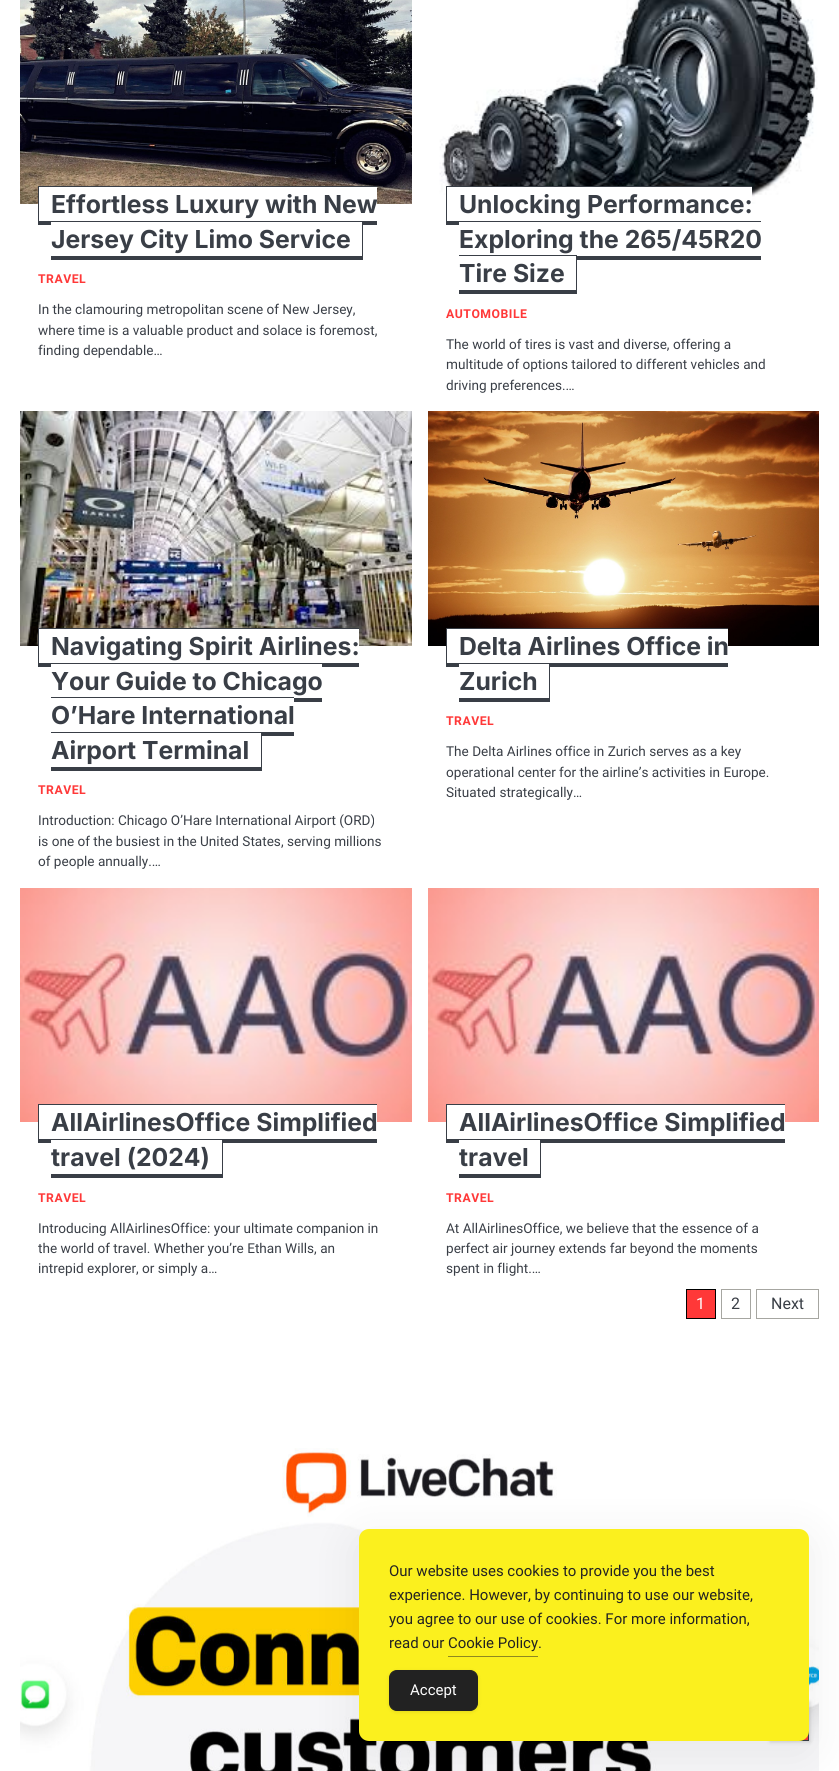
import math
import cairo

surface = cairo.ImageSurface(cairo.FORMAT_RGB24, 839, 1771)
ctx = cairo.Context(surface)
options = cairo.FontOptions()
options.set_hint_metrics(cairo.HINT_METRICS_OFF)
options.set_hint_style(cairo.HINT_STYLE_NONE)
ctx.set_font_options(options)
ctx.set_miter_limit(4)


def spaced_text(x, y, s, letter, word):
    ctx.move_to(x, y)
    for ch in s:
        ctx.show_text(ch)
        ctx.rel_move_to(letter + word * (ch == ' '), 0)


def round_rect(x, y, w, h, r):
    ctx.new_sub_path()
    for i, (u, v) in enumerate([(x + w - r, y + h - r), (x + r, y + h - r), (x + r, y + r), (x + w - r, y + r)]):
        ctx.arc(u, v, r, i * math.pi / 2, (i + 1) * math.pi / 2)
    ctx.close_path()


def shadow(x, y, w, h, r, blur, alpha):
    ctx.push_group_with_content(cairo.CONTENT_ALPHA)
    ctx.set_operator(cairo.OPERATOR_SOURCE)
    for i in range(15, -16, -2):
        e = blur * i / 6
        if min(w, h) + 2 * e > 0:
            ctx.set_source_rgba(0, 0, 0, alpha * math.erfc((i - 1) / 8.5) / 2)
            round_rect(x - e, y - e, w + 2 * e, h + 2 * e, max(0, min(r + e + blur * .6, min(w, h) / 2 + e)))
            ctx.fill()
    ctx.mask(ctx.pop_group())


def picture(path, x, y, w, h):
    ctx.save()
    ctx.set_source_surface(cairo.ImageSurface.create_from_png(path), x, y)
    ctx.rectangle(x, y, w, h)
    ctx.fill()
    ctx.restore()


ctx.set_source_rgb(1, 1, 1)
ctx.paint()
picture("img1.png", 20, 0, 392, 204)
ctx.set_source_rgb(1, 1, 1)
ctx.rectangle(39, 187, 338, 17)
ctx.fill()
ctx.select_font_face("Inter", cairo.FONT_SLANT_NORMAL, cairo.FONT_WEIGHT_BOLD)
ctx.set_font_size(24.75)
ctx.set_source_rgb(0.224, 0.243, 0.275)
ctx.move_to(51, 213)
ctx.show_text("Effortless Luxury with New")
ctx.rectangle(38, 221, 339, 4)
ctx.fill()
ctx.rectangle(38, 186, 339, 1)
ctx.fill()
ctx.rectangle(38, 186, 1, 36)
ctx.fill()
ctx.set_source_rgb(1, 1, 1)
ctx.rectangle(51, 222, 311, 3)
ctx.fill()
ctx.set_source_rgb(0.224, 0.243, 0.275)
ctx.move_to(51, 248)
ctx.show_text("Jersey City Limo Service")
ctx.rectangle(51, 257, 312, 3)
ctx.fill()
ctx.rectangle(362, 221, 1, 36)
ctx.fill()
ctx.rectangle(51, 256, 312, 1)
ctx.fill()
ctx.select_font_face("Roboto", cairo.FONT_SLANT_NORMAL, cairo.FONT_WEIGHT_BOLD)
ctx.set_font_size(12.25)
ctx.set_source_rgb(1, 0.22, 0.22)
spaced_text(38, 283, "TRAVEL", 0.5, 0)
ctx.select_font_face("Roboto")
ctx.set_font_size(13.6)
ctx.set_source_rgb(0.224, 0.243, 0.275)
ctx.move_to(38, 314)
ctx.show_text("In the clamouring metropolitan scene of New Jersey,")
ctx.move_to(38, 335)
ctx.show_text("where time is a valuable product and solace is foremost,")
ctx.move_to(38, 355)
ctx.show_text("finding dependable…")
picture("img2.png", 439, 0, 379, 204)
ctx.set_source_rgb(1, 1, 1)
ctx.rectangle(447, 187, 305, 17)
ctx.fill()
ctx.select_font_face("Inter", cairo.FONT_SLANT_NORMAL, cairo.FONT_WEIGHT_BOLD)
ctx.set_font_size(24.75)
ctx.set_source_rgb(0.224, 0.243, 0.275)
ctx.move_to(459, 213)
ctx.show_text("Unlocking Performance:")
ctx.rectangle(446, 221, 13, 4)
ctx.fill()
ctx.rectangle(446, 186, 306, 1)
ctx.fill()
ctx.rectangle(446, 186, 1, 36)
ctx.fill()
ctx.rectangle(459, 221, 302, 1)
ctx.fill()
ctx.move_to(459, 248)
ctx.show_text("Exploring the 265/45R20")
ctx.rectangle(577, 256, 184, 4)
ctx.fill()
ctx.rectangle(459, 255, 118, 1)
ctx.fill()
ctx.move_to(459, 282)
ctx.show_text("Tire Size")
ctx.rectangle(459, 291, 118, 3)
ctx.fill()
ctx.rectangle(576, 255, 1, 36)
ctx.fill()
ctx.rectangle(459, 290, 118, 1)
ctx.fill()
ctx.select_font_face("Roboto", cairo.FONT_SLANT_NORMAL, cairo.FONT_WEIGHT_BOLD)
ctx.set_font_size(12.25)
ctx.set_source_rgb(1, 0.22, 0.22)
spaced_text(446, 318, "AUTOMOBILE", 0.5, 0)
ctx.select_font_face("Roboto")
ctx.set_font_size(13.6)
ctx.set_source_rgb(0.224, 0.243, 0.275)
ctx.move_to(446, 349)
ctx.show_text("The world of tires is vast and diverse, offering a")
ctx.move_to(446, 369)
ctx.show_text("multitude of options tailored to different vehicles and")
ctx.move_to(446, 390)
ctx.show_text("driving preferences.…")
picture("img3.png", 20, 411, 392, 235)
ctx.set_source_rgb(1, 1, 1)
ctx.rectangle(39, 629, 320, 17)
ctx.fill()
ctx.select_font_face("Inter", cairo.FONT_SLANT_NORMAL, cairo.FONT_WEIGHT_BOLD)
ctx.set_font_size(24.75)
ctx.set_source_rgb(0.224, 0.243, 0.275)
ctx.move_to(51, 655)
ctx.show_text("Navigating Spirit Airlines:")
ctx.rectangle(38, 663, 321, 4)
ctx.fill()
ctx.rectangle(38, 628, 321, 1)
ctx.fill()
ctx.rectangle(38, 628, 1, 36)
ctx.fill()
ctx.set_source_rgb(1, 1, 1)
ctx.rectangle(51, 664, 271, 3)
ctx.fill()
ctx.set_source_rgb(0.224, 0.243, 0.275)
ctx.move_to(51, 690)
ctx.show_text("Your Guide to Chicago")
ctx.rectangle(51, 697, 243, 1)
ctx.fill()
ctx.move_to(51, 724)
ctx.show_text("O’Hare International")
ctx.rectangle(294, 698, 28, 4)
ctx.fill()
ctx.rectangle(262, 732, 32, 4)
ctx.fill()
ctx.rectangle(51, 732, 211, 1)
ctx.fill()
ctx.move_to(51, 759)
ctx.show_text("Airport Terminal")
ctx.rectangle(51, 768, 211, 3)
ctx.fill()
ctx.rectangle(261, 732, 1, 36)
ctx.fill()
ctx.rectangle(51, 767, 211, 1)
ctx.fill()
ctx.select_font_face("Roboto", cairo.FONT_SLANT_NORMAL, cairo.FONT_WEIGHT_BOLD)
ctx.set_font_size(12.25)
ctx.set_source_rgb(1, 0.22, 0.22)
spaced_text(38, 794, "TRAVEL", 0.5, 0)
ctx.select_font_face("Roboto")
ctx.set_font_size(13.6)
ctx.set_source_rgb(0.224, 0.243, 0.275)
ctx.move_to(38, 825)
ctx.show_text("Introduction: Chicago O’Hare International Airport (ORD)")
ctx.move_to(38, 846)
ctx.show_text("is one of the busiest in the United States, serving millions")
ctx.move_to(38, 866)
ctx.show_text("of people annually.…")
picture("img4.png", 428, 411, 391, 235)
ctx.set_source_rgb(1, 1, 1)
ctx.rectangle(447, 629, 281, 17)
ctx.fill()
ctx.select_font_face("Inter", cairo.FONT_SLANT_NORMAL, cairo.FONT_WEIGHT_BOLD)
ctx.set_font_size(24.75)
ctx.set_source_rgb(0.224, 0.243, 0.275)
ctx.move_to(459, 655)
ctx.show_text("Delta Airlines Office in")
ctx.rectangle(446, 628, 282, 1)
ctx.fill()
ctx.rectangle(446, 663, 282, 4)
ctx.fill()
ctx.rectangle(446, 628, 1, 36)
ctx.fill()
ctx.move_to(459, 690)
ctx.show_text("Zurich")
ctx.rectangle(459, 699, 91, 3)
ctx.fill()
ctx.set_source_rgb(1, 1, 1)
ctx.rectangle(459, 664, 90, 3)
ctx.fill()
ctx.set_source_rgb(0.224, 0.243, 0.275)
ctx.rectangle(549, 663, 1, 36)
ctx.fill()
ctx.rectangle(459, 698, 91, 1)
ctx.fill()
ctx.select_font_face("Roboto", cairo.FONT_SLANT_NORMAL, cairo.FONT_WEIGHT_BOLD)
ctx.set_font_size(12.25)
ctx.set_source_rgb(1, 0.22, 0.22)
spaced_text(446, 725, "TRAVEL", 0.5, 0)
ctx.select_font_face("Roboto")
ctx.set_font_size(13.6)
ctx.set_source_rgb(0.224, 0.243, 0.275)
ctx.move_to(446, 756)
ctx.show_text("The Delta Airlines office in Zurich serves as a key")
ctx.move_to(446, 777)
ctx.show_text("operational center for the airline’s activities in Europe.")
ctx.move_to(446, 797)
ctx.show_text("Situated strategically…")
picture("img5.png", 20, 888, 392, 234)
ctx.set_source_rgb(1, 1, 1)
ctx.rectangle(39, 1105, 338, 17)
ctx.fill()
ctx.select_font_face("Inter", cairo.FONT_SLANT_NORMAL, cairo.FONT_WEIGHT_BOLD)
ctx.set_font_size(24.75)
ctx.set_source_rgb(0.224, 0.243, 0.275)
ctx.move_to(51, 1131)
ctx.show_text("AllAirlinesOffice Simplified")
ctx.rectangle(38, 1104, 339, 1)
ctx.fill()
ctx.rectangle(38, 1139, 339, 4)
ctx.fill()
ctx.rectangle(38, 1104, 1, 36)
ctx.fill()
ctx.move_to(51, 1166)
ctx.show_text("travel (2024)")
ctx.rectangle(51, 1175, 172, 3)
ctx.fill()
ctx.set_source_rgb(1, 1, 1)
ctx.rectangle(51, 1140, 171, 3)
ctx.fill()
ctx.set_source_rgb(0.224, 0.243, 0.275)
ctx.rectangle(222, 1139, 1, 36)
ctx.fill()
ctx.rectangle(51, 1174, 172, 1)
ctx.fill()
ctx.select_font_face("Roboto", cairo.FONT_SLANT_NORMAL, cairo.FONT_WEIGHT_BOLD)
ctx.set_font_size(12.25)
ctx.set_source_rgb(1, 0.22, 0.22)
spaced_text(38, 1202, "TRAVEL", 0.5, 0)
ctx.select_font_face("Roboto")
ctx.set_font_size(13.6)
ctx.set_source_rgb(0.224, 0.243, 0.275)
ctx.move_to(38, 1233)
ctx.show_text("Introducing AllAirlinesOffice: your ultimate companion in")
ctx.move_to(38, 1253)
ctx.show_text("the world of travel. Whether you’re Ethan Wills, an")
ctx.move_to(38, 1273)
ctx.show_text("intrepid explorer, or simply a…")
picture("img6.png", 428, 888, 391, 234)
ctx.set_source_rgb(1, 1, 1)
ctx.rectangle(447, 1105, 338, 17)
ctx.fill()
ctx.select_font_face("Inter", cairo.FONT_SLANT_NORMAL, cairo.FONT_WEIGHT_BOLD)
ctx.set_font_size(24.75)
ctx.set_source_rgb(0.224, 0.243, 0.275)
ctx.move_to(459, 1131)
ctx.show_text("AllAirlinesOffice Simplified")
ctx.rectangle(446, 1139, 339, 4)
ctx.fill()
ctx.rectangle(446, 1104, 339, 1)
ctx.fill()
ctx.rectangle(446, 1104, 1, 36)
ctx.fill()
ctx.move_to(459, 1166)
ctx.show_text("travel")
ctx.rectangle(459, 1175, 82, 3)
ctx.fill()
ctx.set_source_rgb(1, 1, 1)
ctx.rectangle(459, 1140, 81, 3)
ctx.fill()
ctx.set_source_rgb(0.224, 0.243, 0.275)
ctx.rectangle(540, 1139, 1, 36)
ctx.fill()
ctx.rectangle(459, 1174, 82, 1)
ctx.fill()
ctx.select_font_face("Roboto", cairo.FONT_SLANT_NORMAL, cairo.FONT_WEIGHT_BOLD)
ctx.set_font_size(12.25)
ctx.set_source_rgb(1, 0.22, 0.22)
spaced_text(446, 1202, "TRAVEL", 0.5, 0)
ctx.select_font_face("Roboto")
ctx.set_font_size(13.6)
ctx.set_source_rgb(0.224, 0.243, 0.275)
ctx.move_to(446, 1233)
ctx.show_text("At AllAirlinesOffice, we believe that the essence of a")
ctx.move_to(446, 1253)
ctx.show_text("perfect air journey extends far beyond the moments")
ctx.move_to(446, 1273)
ctx.show_text("spent in flight.…")
ctx.set_source_rgb(1, 0.22, 0.22)
ctx.rectangle(686.5, 1289.5, 29, 29)
ctx.fill_preserve()
ctx.set_source_rgb(0, 0, 0)
ctx.set_line_width(1)
ctx.stroke()
ctx.set_font_size(16)
ctx.set_source_rgb(1, 1, 1)
ctx.move_to(696, 1309)
ctx.show_text("1")
ctx.rectangle(721.5, 1289.5, 29, 29)
ctx.set_source_rgb(0.651, 0.651, 0.631)
ctx.stroke()
ctx.set_source_rgb(0.224, 0.243, 0.275)
ctx.move_to(731, 1309)
ctx.show_text("2")
ctx.rectangle(756.5, 1289.5, 62, 29)
ctx.set_source_rgb(0.651, 0.651, 0.631)
ctx.stroke()
ctx.set_source_rgb(0.224, 0.243, 0.275)
ctx.move_to(771, 1309)
ctx.show_text("Next")
picture("img7.png", 20, 1448, 799, 323)
ctx.set_source_rgb(0.569, 0.569, 0.569)
shadow(770, 1702, 40, 40, 0, 2, 0.38)
ctx.set_source_rgb(1, 0.22, 0.22)
ctx.rectangle(803, 1735, 5, 5)
ctx.fill()
ctx.rectangle(769.5, 1701.5, 39, 39)
ctx.set_source_rgb(0.224, 0.243, 0.275)
ctx.stroke()
ctx.set_source_rgb(0, 0, 0)
shadow(349, 1529, 470, 232, 20, 20, 0.05)
ctx.set_source_rgb(0.984, 0.941, 0.118)
round_rect(359, 1529, 450, 212, 10)
ctx.fill()
ctx.set_font_size(15)
ctx.set_source_rgb(0.133, 0.133, 0.133)
ctx.move_to(389, 1576)
ctx.show_text("Our website uses cookies to provide you the best")
ctx.move_to(389, 1600)
ctx.show_text("experience. However, by continuing to use our website,")
ctx.move_to(389, 1624)
ctx.show_text("you agree to our use of cookies. For more information,")
ctx.move_to(389, 1648)
ctx.show_text("read our Cookie Policy")
ctx.move_to(538, 1648)
ctx.show_text(".")
ctx.set_source_rgb(0.561, 0.537, 0.125)
ctx.rectangle(448, 1656, 90, 1)
ctx.fill()
ctx.set_source_rgb(0, 0, 0)
shadow(389, 1671, 89, 41, 8, 2, 0.1)
ctx.set_source_rgb(0.133, 0.133, 0.133)
round_rect(389.5, 1670.5, 88, 40, 7.5)
ctx.fill_preserve()
ctx.stroke()
ctx.set_source_rgb(1, 1, 1)
ctx.move_to(410, 1695)
ctx.show_text("Accept")
surface.write_to_png("page.png")
